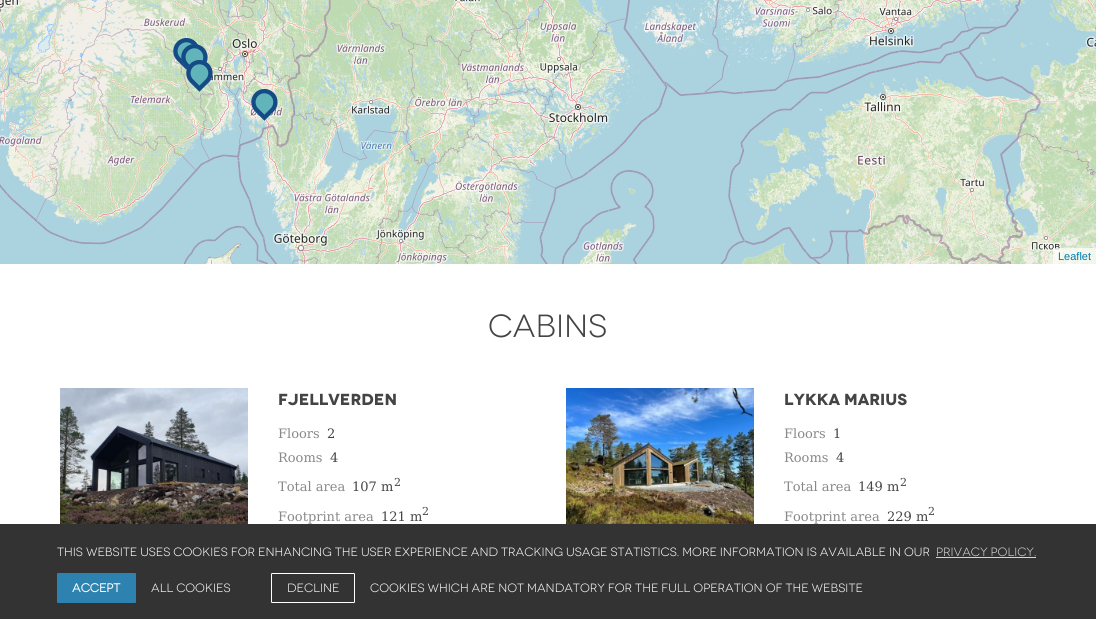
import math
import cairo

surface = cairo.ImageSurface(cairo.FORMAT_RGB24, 1096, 619)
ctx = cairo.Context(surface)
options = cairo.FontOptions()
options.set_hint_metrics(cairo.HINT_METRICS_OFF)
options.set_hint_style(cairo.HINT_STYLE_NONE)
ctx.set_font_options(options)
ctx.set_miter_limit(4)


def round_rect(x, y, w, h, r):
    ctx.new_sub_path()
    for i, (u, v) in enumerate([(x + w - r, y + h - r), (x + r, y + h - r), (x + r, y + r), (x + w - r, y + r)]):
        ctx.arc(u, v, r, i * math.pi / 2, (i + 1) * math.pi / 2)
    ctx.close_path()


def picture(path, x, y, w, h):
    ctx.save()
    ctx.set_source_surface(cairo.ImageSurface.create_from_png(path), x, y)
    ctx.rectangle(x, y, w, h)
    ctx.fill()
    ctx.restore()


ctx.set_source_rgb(1, 1, 1)
ctx.paint()
picture("img1.png", 0, 0, 12, 152)
picture("img2.png", 12, 0, 256, 152)
picture("img3.png", 268, 0, 256, 152)
picture("img4.png", 524, 0, 256, 152)
picture("img5.png", 780, 0, 256, 152)
picture("img6.png", 1036, 0, 60, 152)
picture("img7.png", 0, 152, 12, 112)
picture("img8.png", 12, 152, 256, 112)
picture("img9.png", 268, 152, 256, 112)
picture("img10.png", 524, 152, 256, 112)
picture("img11.png", 780, 152, 256, 112)
picture("img12.png", 1036, 152, 60, 112)
picture("img13.png", 173, 38, 25, 32)
picture("img14.png", 181, 44, 27, 25)
picture("img15.png", 186, 60, 27, 32)
picture("img16.png", 251, 89, 27, 32)
ctx.set_source_rgba(1, 1, 1, 0.7)
ctx.rectangle(1053, 248, 43, 16)
ctx.fill()
ctx.select_font_face("Liberation Sans")
ctx.set_font_size(11)
ctx.set_source_rgb(0, 0.471, 0.659)
ctx.move_to(1058, 260)
ctx.show_text("Leaflet")
ctx.select_font_face("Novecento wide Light")
ctx.set_font_size(32)
ctx.set_source_rgb(0.267, 0.267, 0.267)
ctx.move_to(488, 337)
ctx.show_text("CABINS")
picture("img17.png", 60, 388, 188, 136)
ctx.select_font_face("Novecento wide", cairo.FONT_SLANT_NORMAL, cairo.FONT_WEIGHT_BOLD)
ctx.set_font_size(16)
ctx.move_to(278, 405)
ctx.show_text("FJELLVERDEN")
ctx.select_font_face("DejaVu Serif")
ctx.set_font_size(13)
ctx.set_source_rgb(0.533, 0.533, 0.533)
ctx.move_to(278, 438)
ctx.show_text("Floors")
ctx.set_source_rgb(0.267, 0.267, 0.267)
ctx.move_to(327, 438)
ctx.show_text("2")
ctx.set_source_rgb(0.533, 0.533, 0.533)
ctx.move_to(278, 462)
ctx.show_text("Rooms")
ctx.set_source_rgb(0.267, 0.267, 0.267)
ctx.move_to(330, 462)
ctx.show_text("4")
ctx.set_source_rgb(0.533, 0.533, 0.533)
ctx.move_to(278, 491)
ctx.show_text("Total area")
ctx.set_source_rgb(0.267, 0.267, 0.267)
ctx.move_to(352, 491)
ctx.show_text("107 m")
ctx.set_font_size(11)
ctx.move_to(394, 486)
ctx.show_text("2")
ctx.set_font_size(13)
ctx.set_source_rgb(0.533, 0.533, 0.533)
ctx.move_to(278, 521)
ctx.show_text("Footprint area")
ctx.set_source_rgb(0.267, 0.267, 0.267)
ctx.move_to(381, 521)
ctx.show_text("121 m")
ctx.set_font_size(11)
ctx.move_to(422, 515)
ctx.show_text("2")
picture("img18.png", 566, 388, 188, 136)
ctx.select_font_face("Novecento wide", cairo.FONT_SLANT_NORMAL, cairo.FONT_WEIGHT_BOLD)
ctx.set_font_size(16)
ctx.move_to(784, 405)
ctx.show_text("LYKKA MARIUS")
ctx.select_font_face("DejaVu Serif")
ctx.set_font_size(13)
ctx.set_source_rgb(0.533, 0.533, 0.533)
ctx.move_to(784, 438)
ctx.show_text("Floors")
ctx.set_source_rgb(0.267, 0.267, 0.267)
ctx.move_to(833, 438)
ctx.show_text("1")
ctx.set_source_rgb(0.533, 0.533, 0.533)
ctx.move_to(784, 462)
ctx.show_text("Rooms")
ctx.set_source_rgb(0.267, 0.267, 0.267)
ctx.move_to(836, 462)
ctx.show_text("4")
ctx.set_source_rgb(0.533, 0.533, 0.533)
ctx.move_to(784, 491)
ctx.show_text("Total area")
ctx.set_source_rgb(0.267, 0.267, 0.267)
ctx.move_to(858, 491)
ctx.show_text("149 m")
ctx.set_font_size(11)
ctx.move_to(900, 486)
ctx.show_text("2")
ctx.set_font_size(13)
ctx.set_source_rgb(0.533, 0.533, 0.533)
ctx.move_to(784, 521)
ctx.show_text("Footprint area")
ctx.set_source_rgb(0.267, 0.267, 0.267)
ctx.move_to(887, 521)
ctx.show_text("229 m")
ctx.set_font_size(11)
ctx.move_to(928, 515)
ctx.show_text("2")
ctx.set_source_rgb(0.2, 0.2, 0.2)
ctx.rectangle(0, 524, 1096, 95)
ctx.fill()
ctx.select_font_face("Novecento wide Light")
ctx.set_font_size(12)
ctx.set_source_rgb(1, 1, 1)
ctx.move_to(57, 556)
ctx.show_text("This website uses cookies for enhancing the user experience and tracking usage statistics. More information is available in our")
ctx.set_source_rgb(0.839, 0.839, 0.839)
ctx.move_to(936, 556)
ctx.show_text("Privacy Policy.")
ctx.rectangle(936, 557, 100, 1)
ctx.fill()
ctx.set_source_rgb(0.18, 0.51, 0.69)
round_rect(57, 573, 79, 30, 1)
ctx.fill()
ctx.select_font_face("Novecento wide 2", cairo.FONT_SLANT_NORMAL, cairo.FONT_WEIGHT_BOLD)
ctx.set_source_rgb(1, 1, 1)
ctx.move_to(72, 592)
ctx.show_text("Accept")
ctx.select_font_face("Novecento wide Light")
ctx.move_to(151, 592)
ctx.show_text("all cookies")
round_rect(271.5, 573.5, 83, 29, 0.5)
ctx.set_line_width(1)
ctx.stroke()
ctx.move_to(287, 592)
ctx.show_text("Decline")
ctx.move_to(370, 592)
ctx.show_text("cookies which are not mandatory for the full operation of the website")
surface.write_to_png("page.png")
